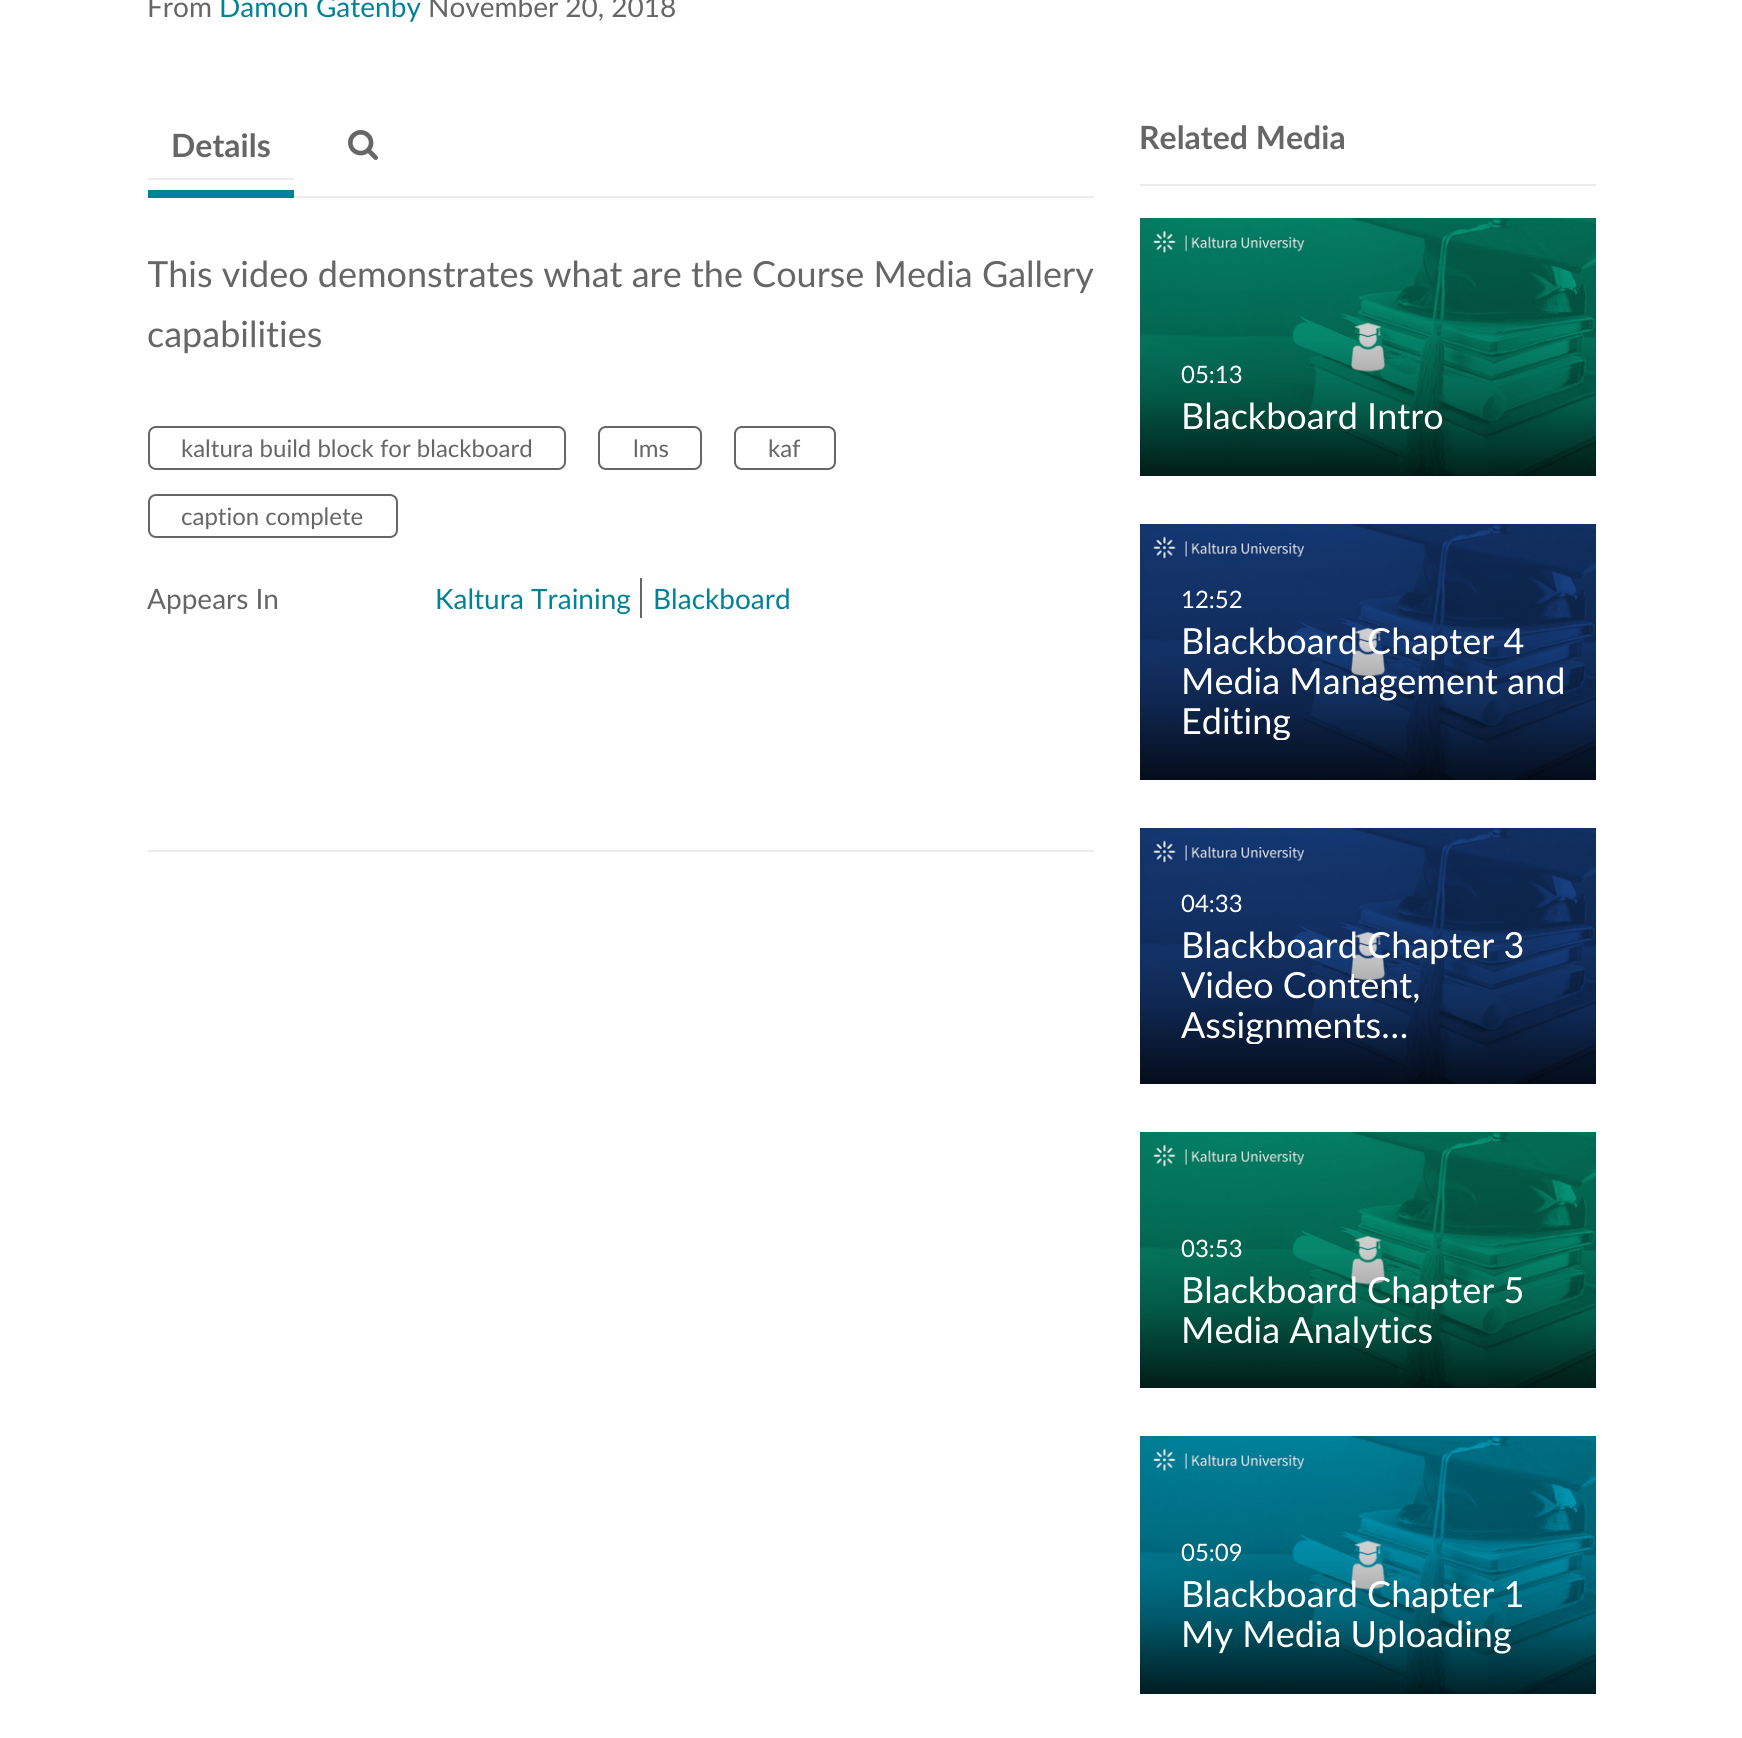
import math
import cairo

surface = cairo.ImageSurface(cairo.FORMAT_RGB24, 1742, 1738)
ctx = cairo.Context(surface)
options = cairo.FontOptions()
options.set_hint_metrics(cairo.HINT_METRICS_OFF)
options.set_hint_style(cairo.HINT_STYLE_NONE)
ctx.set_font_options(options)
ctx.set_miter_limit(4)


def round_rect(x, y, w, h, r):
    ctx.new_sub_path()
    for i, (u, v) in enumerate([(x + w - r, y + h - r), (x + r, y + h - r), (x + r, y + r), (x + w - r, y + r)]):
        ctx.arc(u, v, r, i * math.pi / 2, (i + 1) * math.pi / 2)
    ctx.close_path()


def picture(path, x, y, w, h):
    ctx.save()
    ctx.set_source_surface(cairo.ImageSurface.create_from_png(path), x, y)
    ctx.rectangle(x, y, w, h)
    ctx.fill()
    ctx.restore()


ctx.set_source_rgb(1, 1, 1)
ctx.paint()
ctx.select_font_face("Lato")
ctx.set_font_size(28)
ctx.set_source_rgb(0.4, 0.4, 0.4)
ctx.move_to(147, 17)
ctx.show_text("From")
ctx.set_source_rgb(0, 0.51, 0.592)
ctx.move_to(219, 17)
ctx.show_text("Damon Gatenby")
ctx.set_source_rgb(0.4, 0.4, 0.4)
ctx.move_to(428, 17)
ctx.show_text("November 20, 2018")
ctx.set_source_rgb(0.922, 0.922, 0.922)
ctx.rectangle(294, 196, 800, 2)
ctx.fill()
ctx.rectangle(148, 178, 146, 2)
ctx.fill()
ctx.set_source_rgb(0, 0.51, 0.592)
ctx.rectangle(148, 190, 146, 8)
ctx.fill()
ctx.select_font_face("Lato", cairo.FONT_SLANT_NORMAL, cairo.FONT_WEIGHT_BOLD)
ctx.set_font_size(32)
ctx.set_source_rgb(0.4, 0.4, 0.4)
ctx.move_to(171, 157)
ctx.show_text("Details")
picture("img1.png", 348, 130, 30, 30)
ctx.save()
ctx.rectangle(148, 242, 946, 464)
ctx.clip()
ctx.select_font_face("Lato")
ctx.set_font_size(36)
ctx.move_to(147, 287)
ctx.show_text("This video demonstrates what are the Course Media Gallery")
ctx.restore()
ctx.select_font_face("Lato")
ctx.set_font_size(36)
ctx.move_to(147, 347)
ctx.show_text("capabilities")
round_rect(149, 427, 416, 42, 7)
ctx.stroke()
ctx.set_font_size(24)
ctx.move_to(181, 457)
ctx.show_text("kaltura build block for blackboard")
round_rect(599, 427, 102, 42, 7)
ctx.stroke()
ctx.move_to(633, 457)
ctx.show_text("lms")
round_rect(735, 427, 100, 42, 7)
ctx.stroke()
ctx.move_to(768, 457)
ctx.show_text("kaf")
round_rect(149, 495, 248, 42, 7)
ctx.stroke()
ctx.move_to(181, 525)
ctx.show_text("caption complete")
ctx.set_font_size(28)
ctx.move_to(147, 609)
ctx.show_text("Appears In")
ctx.rectangle(640, 578, 2, 40)
ctx.fill()
ctx.set_source_rgb(0, 0.51, 0.592)
ctx.move_to(435, 609)
ctx.show_text("Kaltura Training")
ctx.move_to(653, 609)
ctx.show_text("Blackboard")
ctx.set_source_rgb(0.922, 0.922, 0.922)
ctx.rectangle(148, 850, 946, 2)
ctx.fill()
ctx.rectangle(1140, 184, 456, 2)
ctx.fill()
ctx.select_font_face("Lato", cairo.FONT_SLANT_NORMAL, cairo.FONT_WEIGHT_BOLD)
ctx.set_font_size(32)
ctx.set_source_rgb(0.4, 0.4, 0.4)
ctx.move_to(1139, 149)
ctx.show_text("Related Media")
picture("img2.png", 1140, 218, 456, 258)
ctx.select_font_face("Lato")
ctx.set_font_size(24)
ctx.set_source_rgb(1, 1, 1)
ctx.move_to(1181, 383)
ctx.show_text("05:13")
ctx.set_font_size(36)
ctx.move_to(1181, 429)
ctx.show_text("Blackboard Intro")
picture("img3.png", 1140, 524, 456, 256)
ctx.set_font_size(24)
ctx.move_to(1181, 608)
ctx.show_text("12:52")
ctx.set_font_size(36)
ctx.move_to(1181, 654)
ctx.show_text("Blackboard Chapter 4")
ctx.move_to(1181, 694)
ctx.show_text("Media Management and")
ctx.save()
ctx.rectangle(1172, 620, 410, 120)
ctx.clip()
ctx.move_to(1181, 734)
ctx.show_text("Editing")
ctx.restore()
picture("img3.png", 1140, 828, 456, 256)
ctx.set_font_size(24)
ctx.move_to(1181, 912)
ctx.show_text("04:33")
ctx.set_font_size(36)
ctx.move_to(1181, 958)
ctx.show_text("Blackboard Chapter 3")
ctx.move_to(1181, 998)
ctx.show_text("Video Content,")
ctx.save()
ctx.rectangle(1172, 924, 410, 120)
ctx.clip()
ctx.move_to(1181, 1038)
ctx.show_text("Assignments…")
ctx.restore()
picture("img4.png", 1140, 1132, 456, 256)
ctx.set_font_size(24)
ctx.move_to(1181, 1257)
ctx.show_text("03:53")
ctx.set_font_size(36)
ctx.move_to(1181, 1303)
ctx.show_text("Blackboard Chapter 5")
ctx.save()
ctx.rectangle(1172, 1268, 410, 80)
ctx.clip()
ctx.move_to(1181, 1343)
ctx.show_text("Media Analytics")
ctx.restore()
picture("img5.png", 1140, 1436, 456, 258)
ctx.set_font_size(24)
ctx.move_to(1181, 1561)
ctx.show_text("05:09")
ctx.set_font_size(36)
ctx.move_to(1181, 1607)
ctx.show_text("Blackboard Chapter 1")
ctx.move_to(1181, 1647)
ctx.show_text("My Media Uploading")
surface.write_to_png("page.png")
